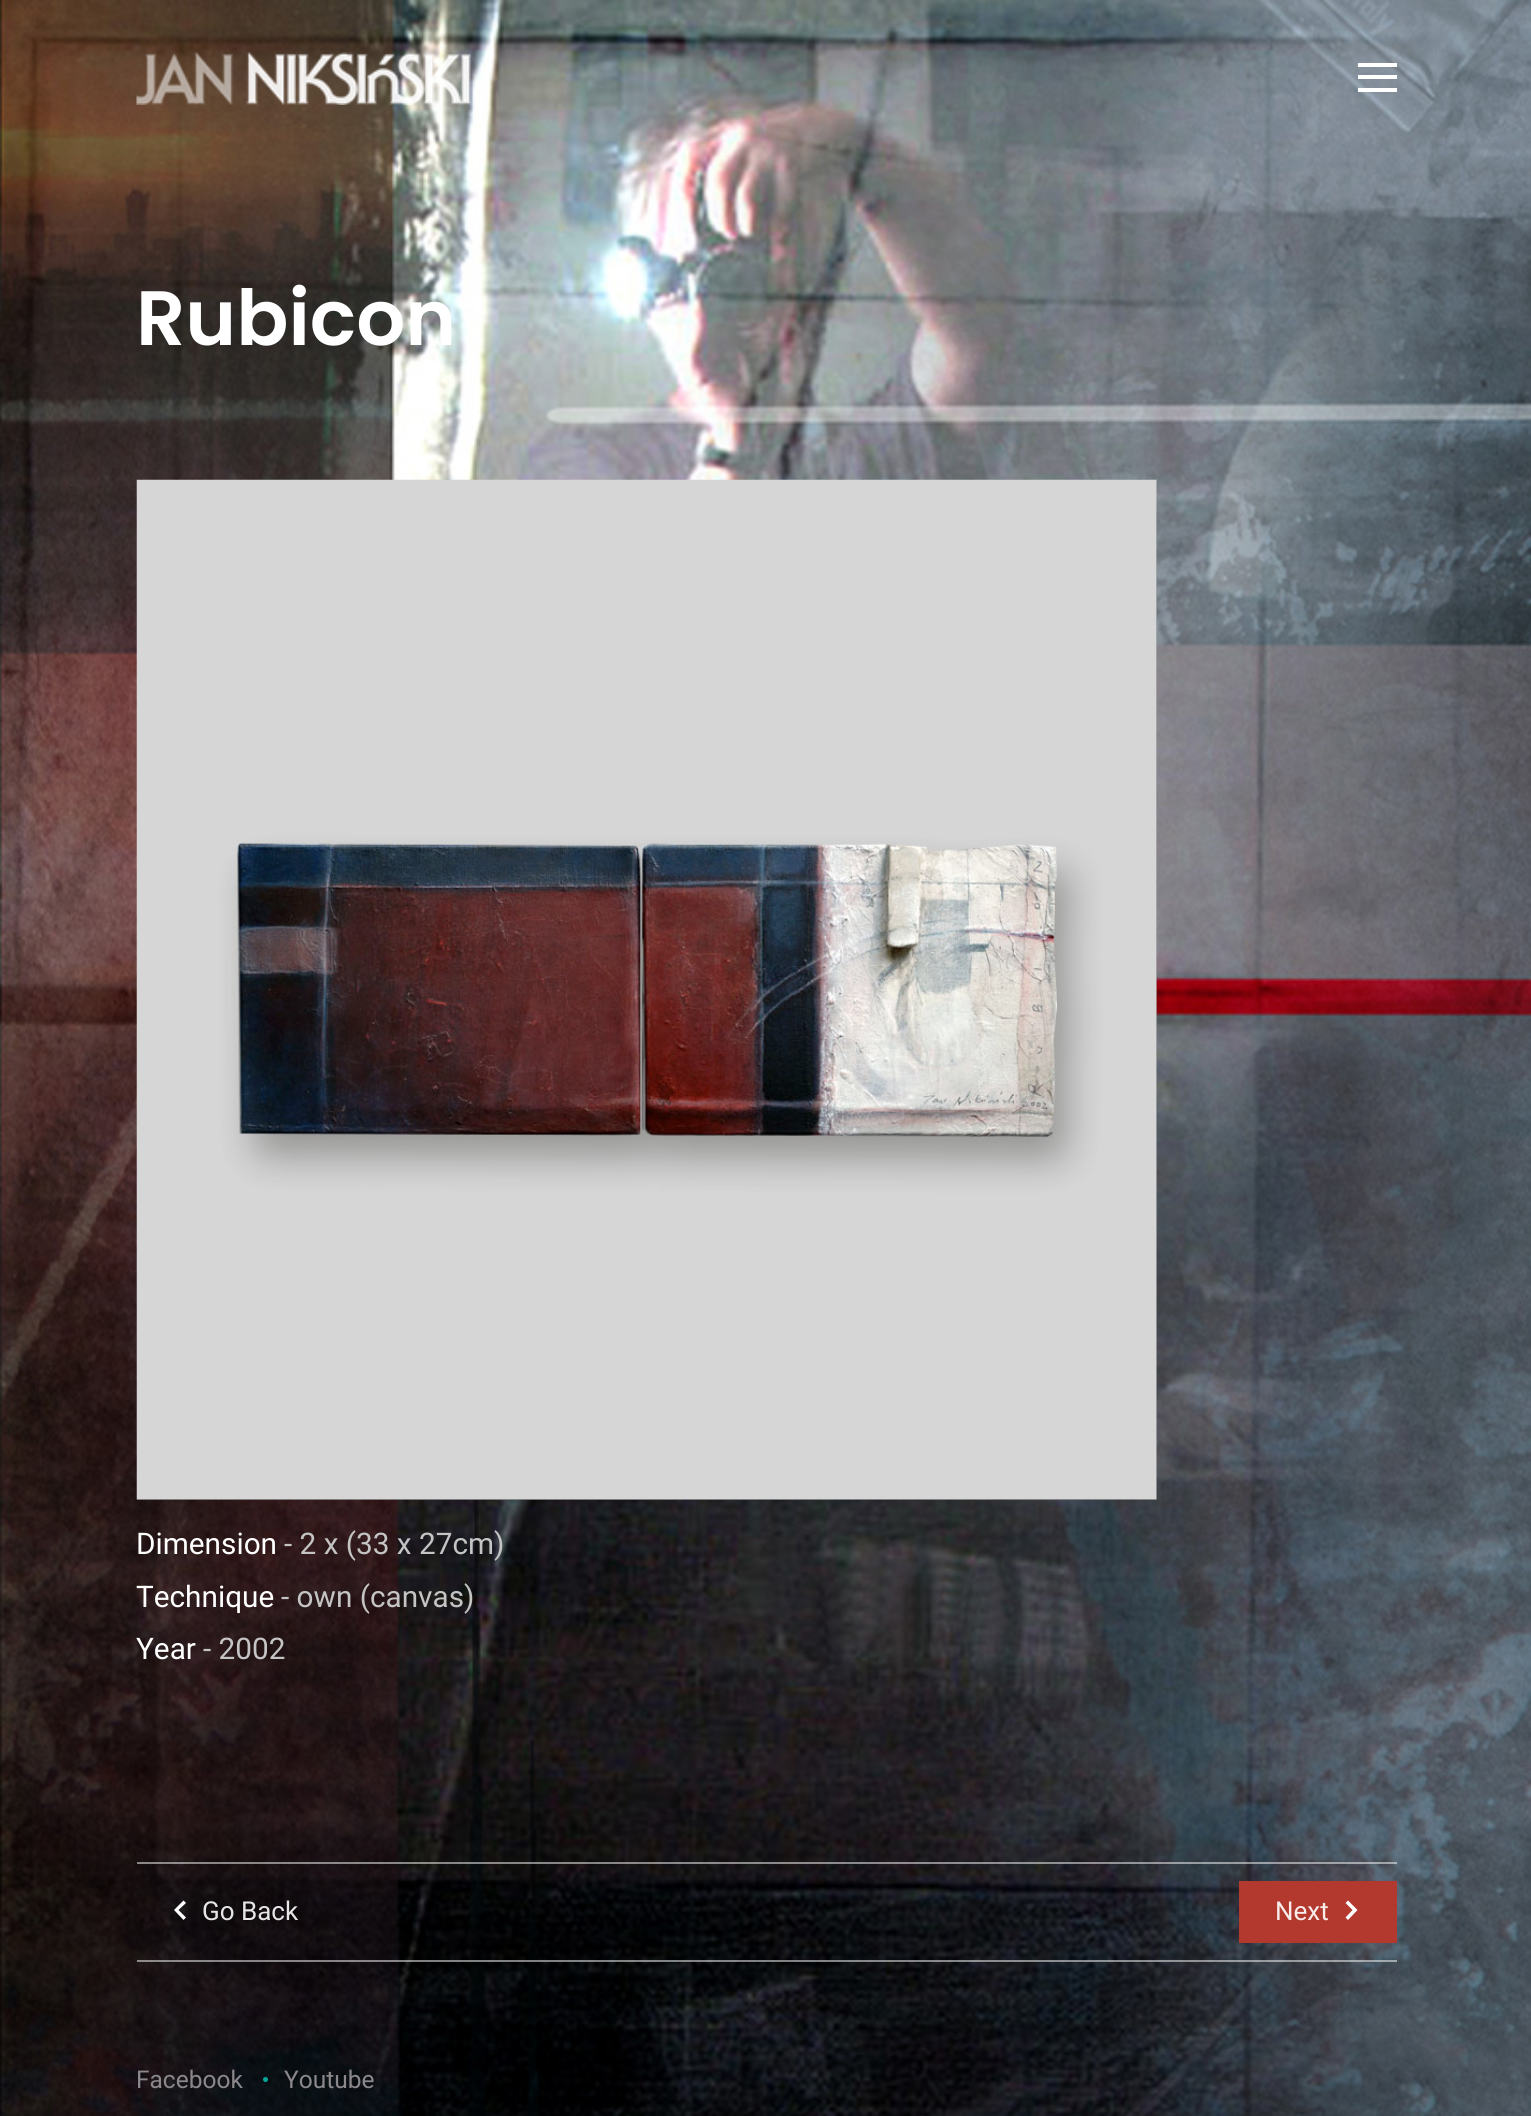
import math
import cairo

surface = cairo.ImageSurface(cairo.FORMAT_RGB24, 1531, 2116)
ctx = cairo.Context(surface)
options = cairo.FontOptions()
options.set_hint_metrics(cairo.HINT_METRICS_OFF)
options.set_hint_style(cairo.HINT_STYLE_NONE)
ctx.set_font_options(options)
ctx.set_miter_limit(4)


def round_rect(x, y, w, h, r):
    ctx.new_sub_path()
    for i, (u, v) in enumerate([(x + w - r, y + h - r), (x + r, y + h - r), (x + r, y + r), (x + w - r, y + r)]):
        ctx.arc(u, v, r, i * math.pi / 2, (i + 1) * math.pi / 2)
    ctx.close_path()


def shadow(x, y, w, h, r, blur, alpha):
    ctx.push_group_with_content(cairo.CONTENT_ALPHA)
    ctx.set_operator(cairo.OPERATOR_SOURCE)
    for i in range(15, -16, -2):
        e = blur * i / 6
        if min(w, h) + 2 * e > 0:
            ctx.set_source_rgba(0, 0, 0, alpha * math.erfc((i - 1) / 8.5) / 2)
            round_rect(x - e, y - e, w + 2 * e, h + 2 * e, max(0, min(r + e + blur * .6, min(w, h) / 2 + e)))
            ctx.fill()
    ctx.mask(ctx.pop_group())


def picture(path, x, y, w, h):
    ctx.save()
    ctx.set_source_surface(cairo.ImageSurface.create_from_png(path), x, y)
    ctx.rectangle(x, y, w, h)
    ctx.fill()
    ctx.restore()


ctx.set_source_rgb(1, 1, 1)
ctx.paint()
picture("img1.png", 0, 0, 1531, 2116)
picture("img2.png", 136, 52, 335, 53)
ctx.set_source_rgb(1, 1, 1)
ctx.rectangle(1358, 75, 39, 4)
ctx.fill()
ctx.rectangle(1358, 63, 39, 4)
ctx.fill()
ctx.rectangle(1358, 88, 39, 4)
ctx.fill()
ctx.select_font_face("Poppins SemiBold")
ctx.set_font_size(77)
ctx.move_to(136, 345)
ctx.show_text("Rubicon")
ctx.save()
ctx.rectangle(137, 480, 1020, 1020)
ctx.clip()
ctx.set_source_rgb(0, 0, 0)
shadow(147, 516, 1003, 1003, 0, 29, 0.8)
ctx.restore()
picture("img3.png", 136, 479, 1021, 1021)
ctx.select_font_face("Roboto")
ctx.set_font_size(29.75)
ctx.move_to(136, 1554)
ctx.show_text("Dimension")
ctx.set_source_rgb(0.769, 0.769, 0.769)
ctx.move_to(284, 1554)
ctx.show_text("- 2 x (33 x 27cm)")
ctx.set_source_rgb(1, 1, 1)
ctx.move_to(136, 1607)
ctx.show_text("Technique")
ctx.set_source_rgb(0.769, 0.769, 0.769)
ctx.move_to(281, 1607)
ctx.show_text("- own (canvas)")
ctx.set_source_rgb(1, 1, 1)
ctx.move_to(136, 1659)
ctx.show_text("Year")
ctx.set_source_rgb(0.769, 0.769, 0.769)
ctx.move_to(203, 1659)
ctx.show_text("- 2002")
ctx.set_source_rgba(1, 1, 1, 0.5)
ctx.rectangle(137, 1862, 1260, 2)
ctx.fill()
ctx.rectangle(137, 1960, 1260, 2)
ctx.fill()
ctx.set_source_rgb(1, 1, 1)
ctx.new_path()
ctx.move_to(186, 1917.5)
ctx.line_to(183.5, 1920)
ctx.line_to(174, 1910)
ctx.line_to(183.5, 1900.5)
ctx.line_to(186, 1903)
ctx.line_to(178.5, 1910)
ctx.close_path()
ctx.fill()
ctx.set_font_size(26)
ctx.set_source_rgb(0.906, 0.906, 0.906)
ctx.move_to(202, 1920)
ctx.show_text("Go Back")
ctx.set_source_rgb(0.702, 0.224, 0.18)
ctx.rectangle(1239, 1881, 158, 62)
ctx.fill()
ctx.set_source_rgb(0.969, 0.922, 0.918)
ctx.move_to(1275, 1920)
ctx.show_text("Next")
ctx.set_source_rgb(1, 1, 1)
ctx.new_path()
ctx.move_to(1345.5, 1903)
ctx.line_to(1348, 1900.5)
ctx.line_to(1357.5, 1910)
ctx.line_to(1348, 1920)
ctx.line_to(1345.5, 1917.5)
ctx.line_to(1352.5, 1910)
ctx.close_path()
ctx.fill()
ctx.set_font_size(24.5)
ctx.set_source_rgb(0.541, 0.533, 0.545)
ctx.move_to(136, 2088)
ctx.show_text("Facebook")
ctx.set_source_rgb(0.012, 0.651, 0.588)
ctx.new_path()
ctx.arc(265.5, 2079.5, 2.5, 0, 2 * math.pi)
ctx.fill()
ctx.set_source_rgb(0.541, 0.533, 0.545)
ctx.move_to(284, 2088)
ctx.show_text("Youtube")
surface.write_to_png("page.png")
